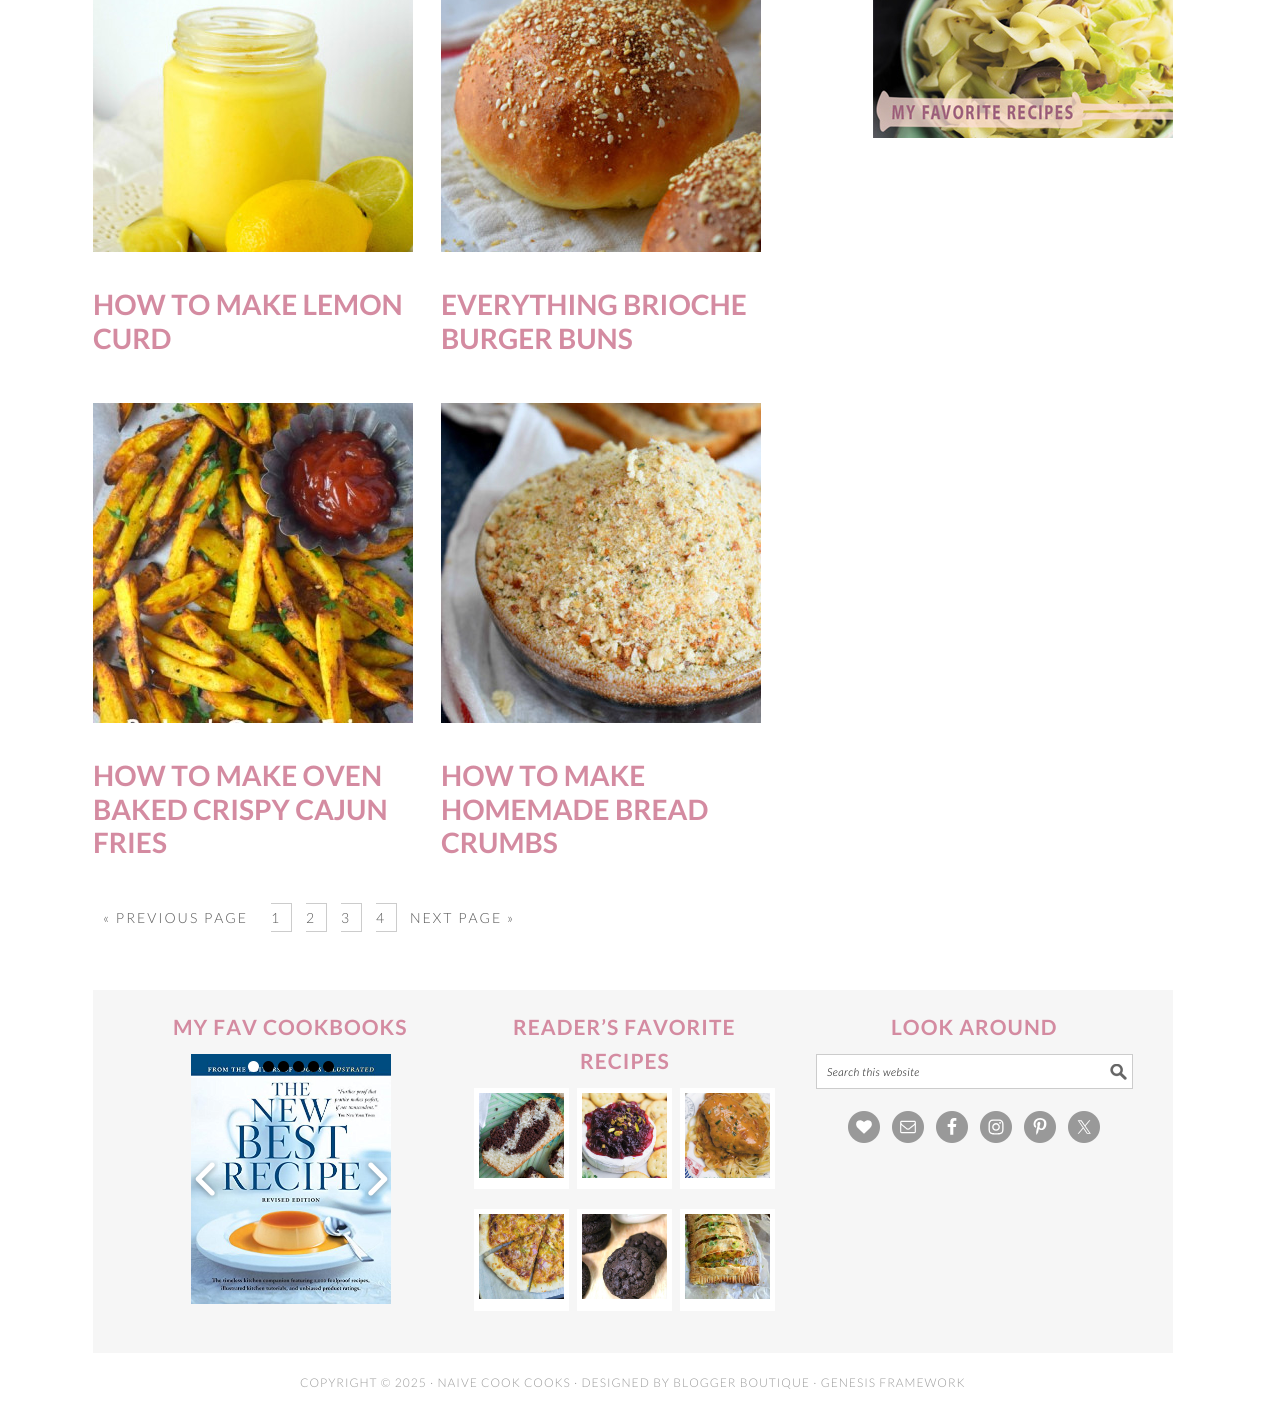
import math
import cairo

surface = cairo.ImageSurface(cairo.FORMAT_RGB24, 1265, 1412)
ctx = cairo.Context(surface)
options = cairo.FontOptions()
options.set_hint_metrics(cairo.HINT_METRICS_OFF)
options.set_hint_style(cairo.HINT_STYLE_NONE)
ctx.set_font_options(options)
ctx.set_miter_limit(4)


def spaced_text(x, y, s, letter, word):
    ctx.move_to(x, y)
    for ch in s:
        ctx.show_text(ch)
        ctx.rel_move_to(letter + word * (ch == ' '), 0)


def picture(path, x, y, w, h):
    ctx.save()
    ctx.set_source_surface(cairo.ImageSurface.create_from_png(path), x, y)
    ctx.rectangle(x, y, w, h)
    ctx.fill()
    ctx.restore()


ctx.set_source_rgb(1, 1, 1)
ctx.paint()
picture("img1.png", 873, 0, 300, 138)
picture("img2.png", 93, 0, 320, 252)
ctx.select_font_face("Lato", cairo.FONT_SLANT_NORMAL, cairo.FONT_WEIGHT_BOLD)
ctx.set_font_size(28)
ctx.set_source_rgb(0.831, 0.545, 0.631)
ctx.move_to(93, 315)
ctx.show_text("HOW TO MAKE LEMON")
ctx.move_to(93, 349)
ctx.show_text("CURD")
picture("img3.png", 441, 0, 320, 252)
ctx.move_to(441, 315)
ctx.show_text("EVERYTHING BRIOCHE")
ctx.move_to(441, 349)
ctx.show_text("BURGER BUNS")
picture("img4.png", 93, 403, 320, 320)
ctx.move_to(93, 786)
ctx.show_text("HOW TO MAKE OVEN")
ctx.move_to(93, 820)
ctx.show_text("BAKED CRISPY CAJUN")
ctx.move_to(93, 853)
ctx.show_text("FRIES")
picture("img5.png", 441, 403, 320, 320)
ctx.move_to(441, 786)
ctx.show_text("HOW TO MAKE")
ctx.move_to(441, 820)
ctx.show_text("HOMEMADE BREAD")
ctx.move_to(441, 853)
ctx.show_text("CRUMBS")
ctx.select_font_face("Lato Light")
ctx.set_font_size(14)
ctx.set_source_rgb(0.337, 0.337, 0.337)
spaced_text(103, 923, "« PREVIOUS PAGE", 2, 0)
spaced_text(271, 923, "1", 2, 0)
ctx.set_source_rgb(0.8, 0.8, 0.8)
ctx.rectangle(271, 903, 21, 1)
ctx.fill()
ctx.rectangle(291, 903, 1, 29)
ctx.fill()
ctx.rectangle(271, 931, 21, 1)
ctx.fill()
ctx.set_source_rgb(0.337, 0.337, 0.337)
spaced_text(306, 923, "2", 2, 0)
ctx.set_source_rgb(0.8, 0.8, 0.8)
ctx.rectangle(306, 903, 21, 1)
ctx.fill()
ctx.rectangle(326, 903, 1, 29)
ctx.fill()
ctx.rectangle(306, 931, 21, 1)
ctx.fill()
ctx.set_source_rgb(0.337, 0.337, 0.337)
spaced_text(341, 923, "3", 2, 0)
ctx.set_source_rgb(0.8, 0.8, 0.8)
ctx.rectangle(341, 903, 21, 1)
ctx.fill()
ctx.rectangle(361, 903, 1, 29)
ctx.fill()
ctx.rectangle(341, 931, 21, 1)
ctx.fill()
ctx.set_source_rgb(0.337, 0.337, 0.337)
spaced_text(376, 923, "4", 2, 0)
ctx.set_source_rgb(0.8, 0.8, 0.8)
ctx.rectangle(376, 903, 21, 1)
ctx.fill()
ctx.rectangle(396, 903, 1, 29)
ctx.fill()
ctx.rectangle(376, 931, 21, 1)
ctx.fill()
ctx.set_source_rgb(0.337, 0.337, 0.337)
spaced_text(410, 923, "NEXT PAGE »", 2, 0)
ctx.set_source_rgb(0.961, 0.961, 0.961)
ctx.rectangle(93, 990, 1080, 363)
ctx.fill()
ctx.select_font_face("Lato", cairo.FONT_SLANT_NORMAL, cairo.FONT_WEIGHT_BOLD)
ctx.set_font_size(21)
ctx.set_source_rgb(0.831, 0.545, 0.631)
spaced_text(173, 1035, "MY FAV COOKBOOKS", 1, 0)
picture("img6.png", 191, 1054, 200, 250)
ctx.set_source_rgb(1, 1, 1)
ctx.arc(253.5, 1066.5, 5.5, 0, 2 * math.pi)
ctx.fill()
ctx.set_source_rgb(0, 0, 0)
ctx.arc(268.5, 1066.5, 5.5, 0, 2 * math.pi)
ctx.fill()
ctx.arc(283.5, 1066.5, 5.5, 0, 2 * math.pi)
ctx.fill()
ctx.arc(298.5, 1066.5, 5.5, 0, 2 * math.pi)
ctx.fill()
ctx.arc(313.5, 1066.5, 5.5, 0, 2 * math.pi)
ctx.fill()
ctx.arc(328.5, 1066.5, 5.5, 0, 2 * math.pi)
ctx.fill()
picture("img7.png", 192, 1160, 26, 40)
picture("img8.png", 365, 1160, 26, 40)
ctx.set_source_rgb(0.831, 0.545, 0.631)
spaced_text(513, 1035, "READER’S FAVORITE", 1, 0)
spaced_text(580, 1069, "RECIPES", 1, 0)
ctx.set_source_rgb(1, 1, 1)
ctx.rectangle(474, 1088, 95, 101)
ctx.fill()
picture("img9.png", 479, 1093, 85, 85)
ctx.rectangle(577, 1088, 95, 101)
ctx.fill()
picture("img10.png", 582, 1093, 85, 85)
ctx.rectangle(680, 1088, 95, 101)
ctx.fill()
picture("img11.png", 685, 1093, 85, 85)
ctx.rectangle(474, 1209, 95, 102)
ctx.fill()
picture("img12.png", 479, 1214, 85, 85)
ctx.rectangle(577, 1209, 95, 102)
ctx.fill()
picture("img13.png", 582, 1214, 85, 85)
ctx.rectangle(680, 1209, 95, 102)
ctx.fill()
picture("img14.png", 685, 1214, 85, 85)
ctx.set_source_rgb(0.831, 0.545, 0.631)
spaced_text(891, 1035, "LOOK AROUND", 1, 0)
ctx.set_source_rgb(1, 1, 1)
ctx.rectangle(817, 1055, 315, 33)
ctx.fill()
picture("img15.png", 1110, 1064, 17, 16)
ctx.rectangle(816.5, 1054.5, 316, 34)
ctx.set_source_rgb(0.8, 0.8, 0.8)
ctx.set_line_width(1)
ctx.stroke()
ctx.select_font_face("Lato Light", cairo.FONT_SLANT_ITALIC)
ctx.set_font_size(11)
ctx.set_source_rgb(0, 0, 0)
spaced_text(827, 1076, "Search this website", 0.5, 0)
ctx.set_source_rgb(0.6, 0.6, 0.6)
ctx.new_path()
ctx.arc(864, 1127, 16, 0, 2 * math.pi)
ctx.fill()
picture("img16.png", 856, 1120, 16, 14)
ctx.arc(908, 1127, 16, 0, 2 * math.pi)
ctx.fill()
picture("img17.png", 900, 1120, 16, 14)
ctx.arc(952, 1127, 16, 0, 2 * math.pi)
ctx.fill()
picture("img18.png", 947, 1118, 10, 17)
ctx.arc(996, 1127, 16, 0, 2 * math.pi)
ctx.fill()
picture("img19.png", 988, 1119, 16, 16)
ctx.arc(1040, 1127, 16, 0, 2 * math.pi)
ctx.fill()
picture("img20.png", 1033, 1118, 14, 17)
ctx.arc(1084, 1127, 16, 0, 2 * math.pi)
ctx.fill()
picture("img21.png", 1077, 1120, 14, 14)
ctx.select_font_face("Lato Light")
ctx.set_font_size(12)
spaced_text(300, 1387, "COPYRIGHT © 2025 · NAIVE COOK COOKS · DESIGNED BY BLOGGER BOUTIQUE · GENESIS FRAMEWORK", 1, 0)
surface.write_to_png("page.png")
